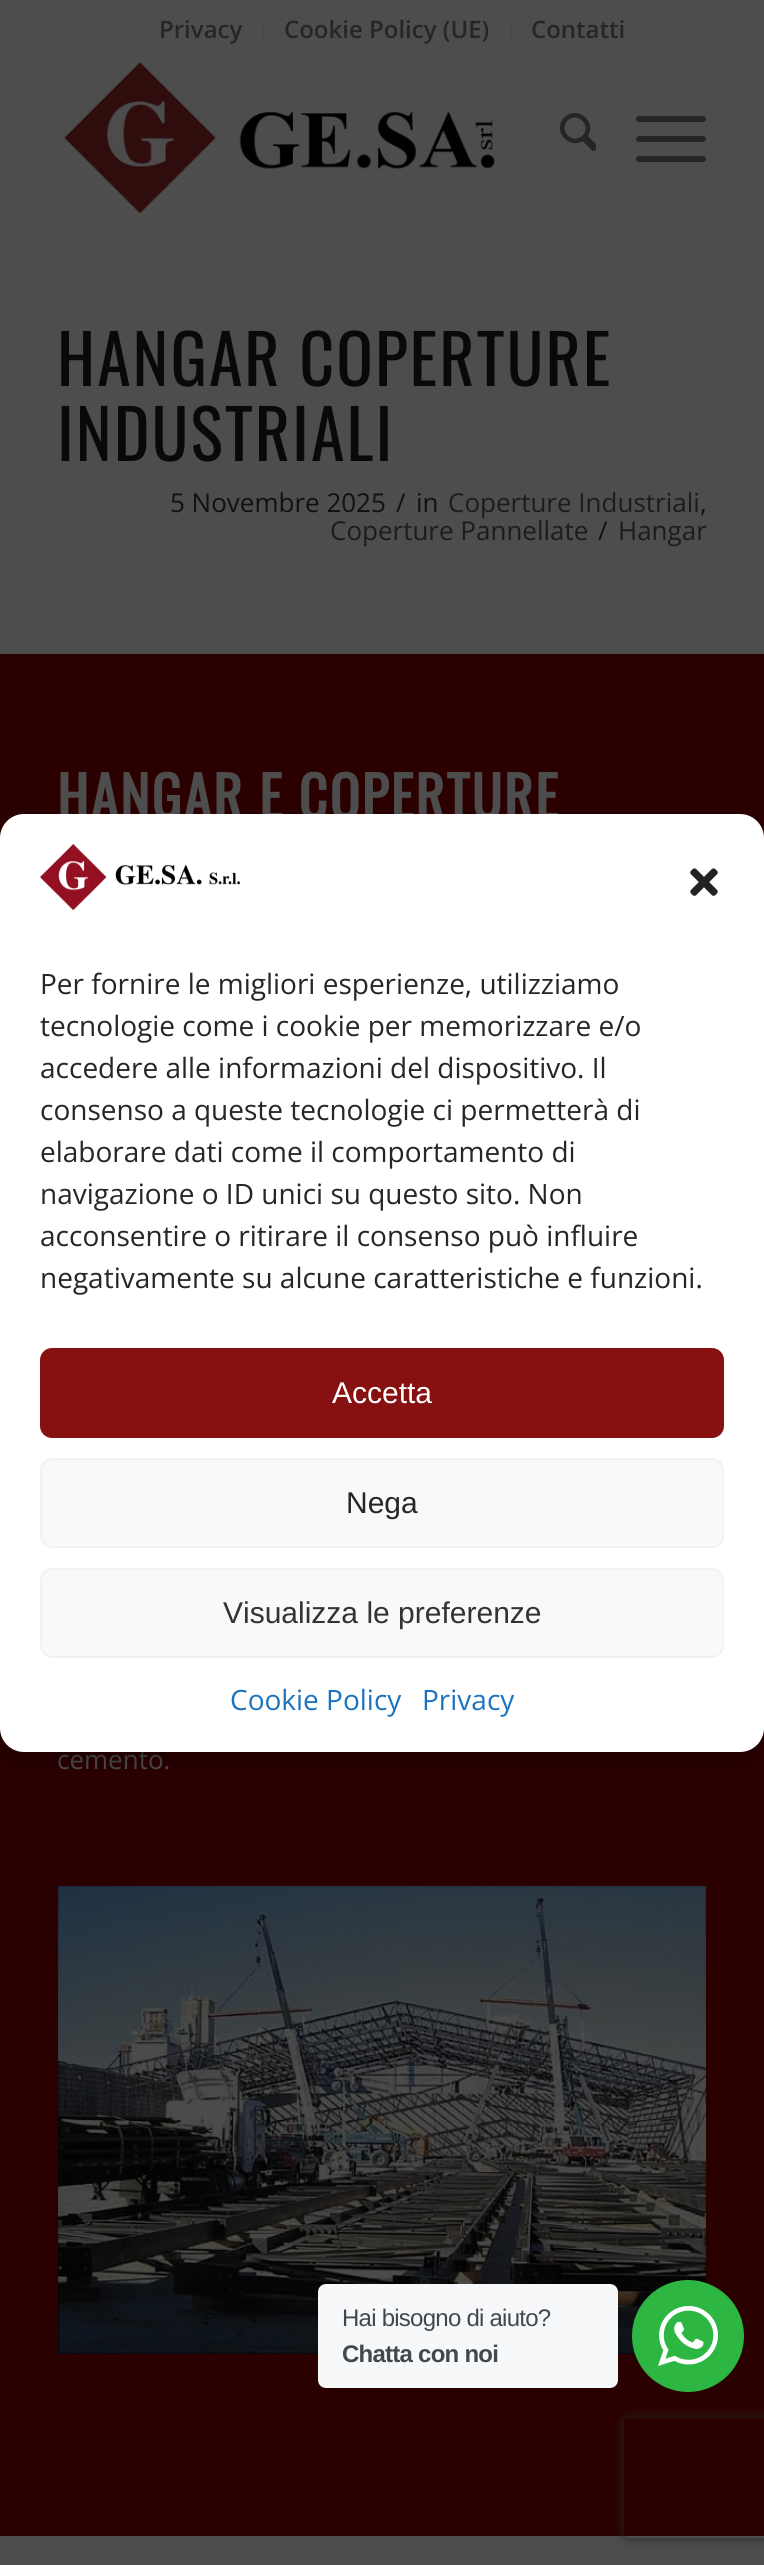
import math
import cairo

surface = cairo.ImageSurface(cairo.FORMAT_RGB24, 764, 2565)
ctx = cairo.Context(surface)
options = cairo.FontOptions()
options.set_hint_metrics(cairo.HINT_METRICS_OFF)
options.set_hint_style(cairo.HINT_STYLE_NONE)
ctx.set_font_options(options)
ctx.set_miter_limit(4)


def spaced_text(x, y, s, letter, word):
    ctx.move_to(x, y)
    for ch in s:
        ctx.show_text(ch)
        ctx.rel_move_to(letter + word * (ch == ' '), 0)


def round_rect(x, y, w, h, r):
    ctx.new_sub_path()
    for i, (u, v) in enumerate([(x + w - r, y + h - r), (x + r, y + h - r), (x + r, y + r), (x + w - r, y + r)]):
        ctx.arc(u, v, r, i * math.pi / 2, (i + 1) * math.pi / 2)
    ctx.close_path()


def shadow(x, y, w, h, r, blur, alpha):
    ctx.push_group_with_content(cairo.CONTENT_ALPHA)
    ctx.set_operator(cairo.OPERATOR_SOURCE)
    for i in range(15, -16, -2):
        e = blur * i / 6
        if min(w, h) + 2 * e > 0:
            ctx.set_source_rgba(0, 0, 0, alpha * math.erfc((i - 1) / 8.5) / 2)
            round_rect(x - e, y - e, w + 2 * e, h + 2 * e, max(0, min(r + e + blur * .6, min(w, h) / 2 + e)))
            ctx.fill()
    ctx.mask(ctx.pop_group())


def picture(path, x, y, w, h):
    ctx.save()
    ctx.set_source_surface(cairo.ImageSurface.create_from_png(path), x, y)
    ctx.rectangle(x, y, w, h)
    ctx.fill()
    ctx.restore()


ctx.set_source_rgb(0.302, 0.302, 0.302)
ctx.paint()
ctx.set_source_rgb(0.29, 0.29, 0.29)
ctx.rectangle(262, 20, 2, 20)
ctx.fill()
ctx.select_font_face("Open Sans SemiBold")
ctx.set_font_size(24)
ctx.set_source_rgb(0.149, 0.149, 0.149)
ctx.move_to(159, 38)
ctx.show_text("Privacy")
ctx.set_source_rgb(0.29, 0.29, 0.29)
ctx.rectangle(510, 20, 2, 20)
ctx.fill()
ctx.set_source_rgb(0.149, 0.149, 0.149)
ctx.move_to(284, 38)
ctx.show_text("Cookie Policy (UE)")
ctx.move_to(531, 38)
ctx.show_text("Contatti")
picture("img1.png", 64, 62, 431, 152)
picture("img2.png", 560, 113, 36, 38)
round_rect(636, 136, 70, 6, 3)
ctx.fill()
round_rect(636, 116, 70, 6, 3)
ctx.fill()
round_rect(636, 156, 70, 6, 3)
ctx.fill()
ctx.select_font_face("Oswald")
ctx.set_font_size(68)
ctx.set_source_rgb(0.039, 0.039, 0.039)
spaced_text(57, 386, "HANGAR COPERTURE", 2, 0)
spaced_text(57, 461, "INDUSTRIALI", 2, 0)
ctx.select_font_face("Open Sans")
ctx.set_font_size(26)
ctx.set_source_rgb(0.067, 0.067, 0.067)
ctx.move_to(170, 512)
ctx.show_text("5 Novembre 2025")
ctx.move_to(396, 512)
ctx.show_text("/")
ctx.move_to(416, 512)
ctx.show_text("in")
ctx.set_source_rgb(0.11, 0.11, 0.11)
ctx.move_to(448, 512)
ctx.show_text("Coperture Industriali")
ctx.set_source_rgb(0.067, 0.067, 0.067)
ctx.move_to(700, 512)
ctx.show_text(",")
ctx.set_source_rgb(0.11, 0.11, 0.11)
ctx.move_to(330, 540)
ctx.show_text("Coperture Pannellate")
ctx.set_source_rgb(0.067, 0.067, 0.067)
ctx.move_to(598, 540)
ctx.show_text("/")
ctx.set_source_rgb(0.11, 0.11, 0.11)
ctx.move_to(618, 540)
ctx.show_text("Hangar")
ctx.set_source_rgb(0.169, 0, 0)
ctx.rectangle(0, 654, 764, 1882)
ctx.fill()
ctx.select_font_face("Oswald", cairo.FONT_SLANT_NORMAL, cairo.FONT_WEIGHT_BOLD)
ctx.set_font_size(56)
ctx.set_source_rgb(0.302, 0.302, 0.302)
spaced_text(57, 819, "HANGAR E COPERTURE", 2, 0)
ctx.select_font_face("Open Sans")
ctx.set_font_size(26)
ctx.move_to(57, 1769)
ctx.show_text("cemento.")
picture("img3.png", 58, 1886, 648, 468)
ctx.set_source_rgb(0, 0, 0)
shadow(0, 826, 764, 938, 24, 6, 0.23)
ctx.set_source_rgb(1, 1, 1)
round_rect(0, 814, 764, 938, 24)
ctx.fill()
picture("img4.png", 40, 844, 200, 67)
picture("img5.png", 690, 868, 28, 28)
ctx.set_font_size(28)
ctx.set_source_rgb(0.149, 0.149, 0.149)
ctx.move_to(40, 994)
ctx.show_text("Per fornire le migliori esperienze, utilizziamo")
ctx.move_to(40, 1036)
ctx.show_text("tecnologie come i cookie per memorizzare e/o")
ctx.move_to(40, 1078)
ctx.show_text("accedere alle informazioni del dispositivo. Il")
ctx.move_to(40, 1120)
ctx.show_text("consenso a queste tecnologie ci permetterà di")
ctx.move_to(40, 1162)
ctx.show_text("elaborare dati come il comportamento di")
ctx.move_to(40, 1204)
ctx.show_text("navigazione o ID unici su questo sito. Non")
ctx.move_to(40, 1246)
ctx.show_text("acconsentire o ritirare il consenso può influire")
ctx.move_to(40, 1288)
ctx.show_text("negativamente su alcune caratteristiche e funzioni.")
ctx.set_source_rgb(0.529, 0.063, 0.063)
round_rect(41, 1349, 682, 88, 11)
ctx.fill_preserve()
ctx.stroke()
ctx.select_font_face("Liberation Sans")
ctx.set_font_size(30)
ctx.set_source_rgb(1, 1, 1)
ctx.move_to(332, 1403)
ctx.show_text("Accetta")
ctx.set_source_rgb(0.976, 0.976, 0.976)
round_rect(41, 1459, 682, 88, 11)
ctx.fill_preserve()
ctx.set_source_rgb(0.949, 0.949, 0.949)
ctx.stroke()
ctx.set_source_rgb(0.149, 0.149, 0.149)
ctx.move_to(346, 1513)
ctx.show_text("Nega")
ctx.set_source_rgb(0.976, 0.976, 0.976)
round_rect(41, 1569, 682, 88, 11)
ctx.fill_preserve()
ctx.set_source_rgb(0.949, 0.949, 0.949)
ctx.stroke()
ctx.set_source_rgb(0.2, 0.2, 0.2)
ctx.move_to(223, 1623)
ctx.show_text("Visualizza le preferenze")
ctx.select_font_face("Open Sans")
ctx.set_font_size(28)
ctx.set_source_rgb(0.118, 0.451, 0.745)
ctx.move_to(230, 1710)
ctx.show_text("Cookie Policy")
ctx.move_to(422, 1710)
ctx.show_text("Privacy")
ctx.set_source_rgb(0.961, 0.969, 0.976)
round_rect(318, 2284, 300, 104, 8)
ctx.fill()
ctx.select_font_face("Liberation Sans")
ctx.set_font_size(24)
ctx.set_source_rgb(0.263, 0.278, 0.306)
spaced_text(342, 2326, "Hai bisogno di aiuto?", -0.75, 0)
ctx.select_font_face("Liberation Sans", cairo.FONT_SLANT_NORMAL, cairo.FONT_WEIGHT_BOLD)
spaced_text(342, 2362, "Chatta con noi", -0.75, 0)
ctx.set_source_rgb(0.176, 0.718, 0.259)
ctx.new_path()
ctx.arc(688, 2336, 56, 0, 2 * math.pi)
ctx.fill()
picture("img6.png", 658, 2306, 60, 60)
ctx.save()
ctx.set_fill_rule(cairo.FILL_RULE_EVEN_ODD)
ctx.new_path()
ctx.move_to(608, 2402)
ctx.line_to(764, 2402)
ctx.line_to(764, 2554)
ctx.line_to(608, 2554)
ctx.close_path()
ctx.move_to(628, 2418)
ctx.line_to(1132, 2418)
ctx.curve_to(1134, 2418, 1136, 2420, 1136, 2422)
ctx.line_to(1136, 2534)
ctx.curve_to(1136, 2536, 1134, 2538, 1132, 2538)
ctx.line_to(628, 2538)
ctx.curve_to(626, 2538, 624, 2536, 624, 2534)
ctx.line_to(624, 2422)
ctx.curve_to(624, 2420, 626, 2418, 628, 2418)
ctx.close_path()
ctx.clip()
ctx.set_source_rgb(0.149, 0.149, 0.149)
shadow(624, 2418, 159, 120, 4, 5, 1)
ctx.restore()
surface.write_to_png("page.png")
